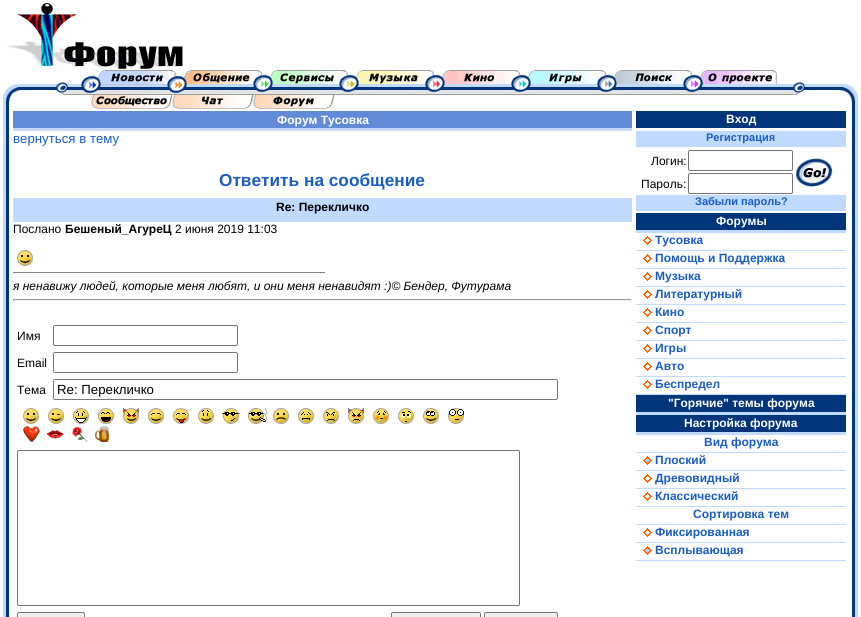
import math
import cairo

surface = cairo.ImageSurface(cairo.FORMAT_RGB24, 861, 617)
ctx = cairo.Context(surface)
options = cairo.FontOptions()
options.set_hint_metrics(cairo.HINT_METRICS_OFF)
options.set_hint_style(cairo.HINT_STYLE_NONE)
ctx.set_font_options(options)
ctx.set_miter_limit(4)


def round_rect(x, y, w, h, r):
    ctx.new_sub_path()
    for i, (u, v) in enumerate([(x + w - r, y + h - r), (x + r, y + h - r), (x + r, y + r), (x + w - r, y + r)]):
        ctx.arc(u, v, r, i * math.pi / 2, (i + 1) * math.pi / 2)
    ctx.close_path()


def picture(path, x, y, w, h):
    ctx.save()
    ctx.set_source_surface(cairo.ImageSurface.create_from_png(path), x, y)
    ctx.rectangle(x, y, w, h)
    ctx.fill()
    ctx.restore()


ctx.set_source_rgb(1, 1, 1)
ctx.paint()
picture("img1.png", 6, 3, 177, 67)
picture("img2.png", 3, 84, 19, 27)
picture("img3.png", 22, 84, 34, 6)
picture("img4.png", 56, 76, 33, 19)
picture("img5.png", 89, 70, 86, 25)
picture("img6.png", 175, 70, 86, 25)
picture("img7.png", 261, 70, 86, 25)
picture("img8.png", 347, 70, 86, 25)
picture("img9.png", 433, 70, 86, 25)
picture("img10.png", 519, 70, 86, 25)
picture("img11.png", 605, 70, 86, 25)
picture("img12.png", 691, 70, 86, 25)
picture("img13.png", 777, 82, 28, 13)
picture("img3.png", 805, 84, 34, 6)
picture("img14.png", 839, 84, 19, 27)
picture("img15.png", 91, 95, 81, 14)
picture("img16.png", 172, 95, 81, 14)
picture("img17.png", 253, 95, 81, 14)
ctx.set_source_rgb(0.753, 0.859, 1)
ctx.rectangle(3, 111, 3, 506)
ctx.fill()
ctx.set_source_rgb(0, 0.208, 0.486)
ctx.rectangle(6, 111, 3, 506)
ctx.fill()
ctx.set_source_rgb(0.38, 0.545, 0.843)
ctx.rectangle(13, 111, 619, 17)
ctx.fill()
ctx.set_source_rgb(0.776, 0.859, 1)
ctx.rectangle(13, 128, 619, 3)
ctx.fill()
ctx.select_font_face("Liberation Sans", cairo.FONT_SLANT_NORMAL, cairo.FONT_WEIGHT_BOLD)
ctx.set_font_size(12)
ctx.set_source_rgb(1, 1, 1)
ctx.move_to(277, 124)
ctx.show_text("Форум Тусовка")
ctx.select_font_face("Liberation Sans")
ctx.set_font_size(13.25)
ctx.set_source_rgb(0.102, 0.361, 0.784)
ctx.move_to(13, 143)
ctx.show_text("вернуться в тему")
ctx.select_font_face("Liberation Sans", cairo.FONT_SLANT_NORMAL, cairo.FONT_WEIGHT_BOLD)
ctx.set_font_size(17.25)
ctx.move_to(219, 186)
ctx.show_text("Ответить на сообщение")
ctx.set_source_rgb(0.753, 0.859, 1)
ctx.rectangle(13, 198, 619, 24)
ctx.fill()
ctx.set_font_size(12)
ctx.set_source_rgb(0, 0, 0)
ctx.move_to(276, 211)
ctx.show_text("Re: Перекличко")
ctx.select_font_face("Liberation Sans")
ctx.move_to(13, 233)
ctx.show_text("Послано")
ctx.select_font_face("Liberation Sans", cairo.FONT_SLANT_NORMAL, cairo.FONT_WEIGHT_BOLD)
ctx.move_to(65, 233)
ctx.show_text("Бешеный_АгуреЦ")
ctx.select_font_face("Liberation Sans")
ctx.move_to(175, 233)
ctx.show_text("2 июня 2019 11:03")
picture("img18.png", 17, 250, 16, 16)
ctx.set_source_rgb(0.502, 0.502, 0.502)
ctx.rectangle(13, 272, 312, 1)
ctx.fill()
ctx.select_font_face("Liberation Sans", cairo.FONT_SLANT_ITALIC)
ctx.set_source_rgb(0, 0, 0)
ctx.move_to(13, 290)
ctx.show_text("я ненавижу людей, которые меня любят, и они меня ненавидят :)© Бендер, Футурама")
ctx.set_source_rgb(0.624, 0.624, 0.624)
ctx.rectangle(13, 299, 619, 1)
ctx.fill()
ctx.set_source_rgb(0.933, 0.933, 0.933)
ctx.rectangle(631, 299, 1, 2)
ctx.fill()
ctx.rectangle(13, 300, 619, 1)
ctx.fill()
ctx.set_source_rgb(0.624, 0.624, 0.624)
ctx.rectangle(13, 299, 1, 2)
ctx.fill()
ctx.select_font_face("Liberation Sans")
ctx.set_source_rgb(0, 0, 0)
ctx.move_to(17, 340)
ctx.show_text("Имя")
round_rect(53.5, 325.5, 184, 20, 1.5)
ctx.set_source_rgb(0.463, 0.463, 0.463)
ctx.set_line_width(1)
ctx.stroke()
ctx.set_source_rgb(0, 0, 0)
ctx.move_to(17, 367)
ctx.show_text("Email")
round_rect(53.5, 352.5, 184, 20, 1.5)
ctx.set_source_rgb(0.463, 0.463, 0.463)
ctx.stroke()
ctx.set_source_rgb(0, 0, 0)
ctx.move_to(17, 394)
ctx.show_text("Тема")
round_rect(53.5, 379.5, 504, 20, 1.5)
ctx.set_source_rgb(0.463, 0.463, 0.463)
ctx.stroke()
ctx.set_font_size(13.25)
ctx.set_source_rgb(0, 0, 0)
ctx.move_to(57, 394)
ctx.show_text("Re: Перекличко")
picture("img18.png", 23, 408, 16, 16)
picture("img19.png", 48, 408, 16, 16)
picture("img20.png", 73, 408, 16, 16)
picture("img21.png", 98, 408, 16, 16)
picture("img22.png", 123, 408, 16, 16)
picture("img23.png", 148, 408, 16, 16)
picture("img24.png", 173, 408, 16, 16)
picture("img25.png", 198, 408, 16, 16)
picture("img26.png", 222, 408, 18, 16)
picture("img27.png", 248, 408, 20, 16)
picture("img28.png", 273, 408, 16, 16)
picture("img29.png", 298, 408, 16, 16)
picture("img30.png", 323, 408, 16, 16)
picture("img31.png", 348, 408, 16, 16)
picture("img32.png", 373, 408, 16, 16)
picture("img33.png", 398, 408, 16, 16)
picture("img34.png", 423, 408, 16, 16)
picture("img35.png", 448, 408, 16, 16)
picture("img36.png", 23, 426, 17, 16)
picture("img37.png", 47, 430, 16, 9)
picture("img38.png", 72, 427, 16, 15)
picture("img39.png", 95, 426, 14, 16)
round_rect(17.5, 450.5, 502, 155, 1.5)
ctx.set_source_rgb(0.463, 0.463, 0.463)
ctx.stroke()
ctx.set_source_rgb(0.937, 0.937, 0.937)
round_rect(17.5, 612.5, 67, 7, 1.5)
ctx.fill_preserve()
ctx.set_source_rgb(0.463, 0.463, 0.463)
ctx.stroke()
ctx.set_source_rgb(0.937, 0.937, 0.937)
round_rect(391.5, 612.5, 89, 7, 1.5)
ctx.fill_preserve()
ctx.set_source_rgb(0.463, 0.463, 0.463)
ctx.stroke()
ctx.set_source_rgb(0.937, 0.937, 0.937)
round_rect(484.5, 612.5, 73, 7, 1.5)
ctx.fill_preserve()
ctx.set_source_rgb(0.463, 0.463, 0.463)
ctx.stroke()
ctx.set_source_rgb(0, 0.204, 0.482)
ctx.rectangle(636, 111, 210, 17)
ctx.fill()
ctx.select_font_face("Liberation Sans", cairo.FONT_SLANT_NORMAL, cairo.FONT_WEIGHT_BOLD)
ctx.set_font_size(12)
ctx.set_source_rgb(1, 1, 1)
ctx.move_to(726, 123)
ctx.show_text("Вход")
ctx.set_source_rgb(0.753, 0.859, 1)
ctx.rectangle(636, 131, 210, 16)
ctx.fill()
ctx.set_font_size(11)
ctx.set_source_rgb(0.102, 0.361, 0.784)
ctx.move_to(706, 141)
ctx.show_text("Регистрация")
ctx.select_font_face("Liberation Sans")
ctx.set_font_size(12)
ctx.set_source_rgb(0, 0, 0)
ctx.move_to(651, 165)
ctx.show_text("Логин:")
round_rect(688.5, 150.5, 104, 20, 1.5)
ctx.set_source_rgb(0.463, 0.463, 0.463)
ctx.stroke()
picture("img40.png", 795, 158, 38, 29)
ctx.set_source_rgb(0, 0, 0)
ctx.move_to(641, 188)
ctx.show_text("Пароль:")
round_rect(688.5, 173.5, 104, 20, 1.5)
ctx.set_source_rgb(0.463, 0.463, 0.463)
ctx.stroke()
ctx.set_source_rgb(0.753, 0.859, 1)
ctx.rectangle(636, 195, 210, 16)
ctx.fill()
ctx.select_font_face("Liberation Sans", cairo.FONT_SLANT_NORMAL, cairo.FONT_WEIGHT_BOLD)
ctx.set_font_size(11)
ctx.set_source_rgb(0.102, 0.361, 0.784)
ctx.move_to(695, 205)
ctx.show_text("Забыли пароль?")
ctx.set_source_rgb(0, 0.204, 0.482)
ctx.rectangle(636, 213, 210, 17)
ctx.fill()
ctx.set_source_rgb(0.753, 0.859, 1)
ctx.rectangle(636, 230, 210, 3)
ctx.fill()
ctx.set_font_size(12)
ctx.set_source_rgb(1, 1, 1)
ctx.move_to(716, 225)
ctx.show_text("Форумы")
ctx.set_source_rgb(0.753, 0.859, 1)
ctx.rectangle(636, 250, 210, 1)
ctx.fill()
picture("img41.png", 643, 236, 9, 9)
ctx.set_source_rgb(0.102, 0.361, 0.784)
ctx.move_to(655, 244)
ctx.show_text("Тусовка")
ctx.set_source_rgb(0.753, 0.859, 1)
ctx.rectangle(636, 268, 210, 1)
ctx.fill()
picture("img41.png", 643, 254, 9, 9)
ctx.set_source_rgb(0.102, 0.361, 0.784)
ctx.move_to(655, 262)
ctx.show_text("Помощь и Поддержка")
ctx.set_source_rgb(0.753, 0.859, 1)
ctx.rectangle(636, 286, 210, 1)
ctx.fill()
picture("img41.png", 643, 272, 9, 9)
ctx.set_source_rgb(0.102, 0.361, 0.784)
ctx.move_to(655, 280)
ctx.show_text("Музыка")
ctx.set_source_rgb(0.753, 0.859, 1)
ctx.rectangle(636, 304, 210, 1)
ctx.fill()
picture("img41.png", 643, 290, 9, 9)
ctx.set_source_rgb(0.102, 0.361, 0.784)
ctx.move_to(655, 298)
ctx.show_text("Литературный")
ctx.set_source_rgb(0.753, 0.859, 1)
ctx.rectangle(636, 322, 210, 1)
ctx.fill()
picture("img41.png", 643, 308, 9, 9)
ctx.set_source_rgb(0.102, 0.361, 0.784)
ctx.move_to(655, 316)
ctx.show_text("Кино")
ctx.set_source_rgb(0.753, 0.859, 1)
ctx.rectangle(636, 340, 210, 1)
ctx.fill()
picture("img41.png", 643, 326, 9, 9)
ctx.set_source_rgb(0.102, 0.361, 0.784)
ctx.move_to(655, 334)
ctx.show_text("Спорт")
ctx.set_source_rgb(0.753, 0.859, 1)
ctx.rectangle(636, 358, 210, 1)
ctx.fill()
picture("img41.png", 643, 344, 9, 9)
ctx.set_source_rgb(0.102, 0.361, 0.784)
ctx.move_to(655, 352)
ctx.show_text("Игры")
ctx.set_source_rgb(0.753, 0.859, 1)
ctx.rectangle(636, 376, 210, 1)
ctx.fill()
picture("img41.png", 643, 362, 9, 9)
ctx.set_source_rgb(0.102, 0.361, 0.784)
ctx.move_to(655, 370)
ctx.show_text("Авто")
ctx.set_source_rgb(0.753, 0.859, 1)
ctx.rectangle(636, 394, 210, 1)
ctx.fill()
picture("img41.png", 643, 380, 9, 9)
ctx.set_source_rgb(0.102, 0.361, 0.784)
ctx.move_to(655, 388)
ctx.show_text("Беспредел")
ctx.set_source_rgb(0, 0.204, 0.482)
ctx.rectangle(636, 395, 210, 17)
ctx.fill()
ctx.set_source_rgb(0.753, 0.859, 1)
ctx.rectangle(636, 412, 210, 3)
ctx.fill()
ctx.set_source_rgb(1, 1, 1)
ctx.move_to(668, 407)
ctx.show_text("\"Горячие\" темы форума")
ctx.set_source_rgb(0, 0.204, 0.482)
ctx.rectangle(636, 415, 210, 17)
ctx.fill()
ctx.set_source_rgb(0.753, 0.859, 1)
ctx.rectangle(636, 432, 210, 3)
ctx.fill()
ctx.set_source_rgb(1, 1, 1)
ctx.move_to(684, 427)
ctx.show_text("Настройка форума")
ctx.set_source_rgb(0.753, 0.859, 1)
ctx.rectangle(636, 452, 210, 1)
ctx.fill()
ctx.set_source_rgb(0.102, 0.361, 0.784)
ctx.move_to(704, 446)
ctx.show_text("Вид форума")
ctx.set_source_rgb(0.753, 0.859, 1)
ctx.rectangle(636, 470, 210, 1)
ctx.fill()
picture("img42.png", 643, 456, 9, 9)
ctx.set_source_rgb(0.102, 0.361, 0.784)
ctx.move_to(655, 464)
ctx.show_text("Плоский")
ctx.set_source_rgb(0.753, 0.859, 1)
ctx.rectangle(636, 488, 210, 1)
ctx.fill()
picture("img41.png", 643, 474, 9, 9)
ctx.set_source_rgb(0.102, 0.361, 0.784)
ctx.move_to(655, 482)
ctx.show_text("Древовидный")
ctx.set_source_rgb(0.753, 0.859, 1)
ctx.rectangle(636, 506, 210, 1)
ctx.fill()
picture("img41.png", 643, 492, 9, 9)
ctx.set_source_rgb(0.102, 0.361, 0.784)
ctx.move_to(655, 500)
ctx.show_text("Классический")
ctx.set_source_rgb(0.753, 0.859, 1)
ctx.rectangle(636, 524, 210, 1)
ctx.fill()
ctx.set_source_rgb(0.102, 0.361, 0.784)
ctx.move_to(693, 518)
ctx.show_text("Сортировка тем")
ctx.set_source_rgb(0.753, 0.859, 1)
ctx.rectangle(636, 542, 210, 1)
ctx.fill()
picture("img41.png", 643, 528, 9, 9)
ctx.set_source_rgb(0.102, 0.361, 0.784)
ctx.move_to(655, 536)
ctx.show_text("Фиксированная")
ctx.set_source_rgb(0.753, 0.859, 1)
ctx.rectangle(636, 560, 210, 1)
ctx.fill()
picture("img42.png", 643, 546, 9, 9)
ctx.set_source_rgb(0.102, 0.361, 0.784)
ctx.move_to(655, 554)
ctx.show_text("Всплывающая")
ctx.set_source_rgb(0, 0.208, 0.486)
ctx.rectangle(852, 111, 3, 506)
ctx.fill()
ctx.set_source_rgb(0.753, 0.859, 1)
ctx.rectangle(855, 111, 3, 506)
ctx.fill()
surface.write_to_png("page.png")
